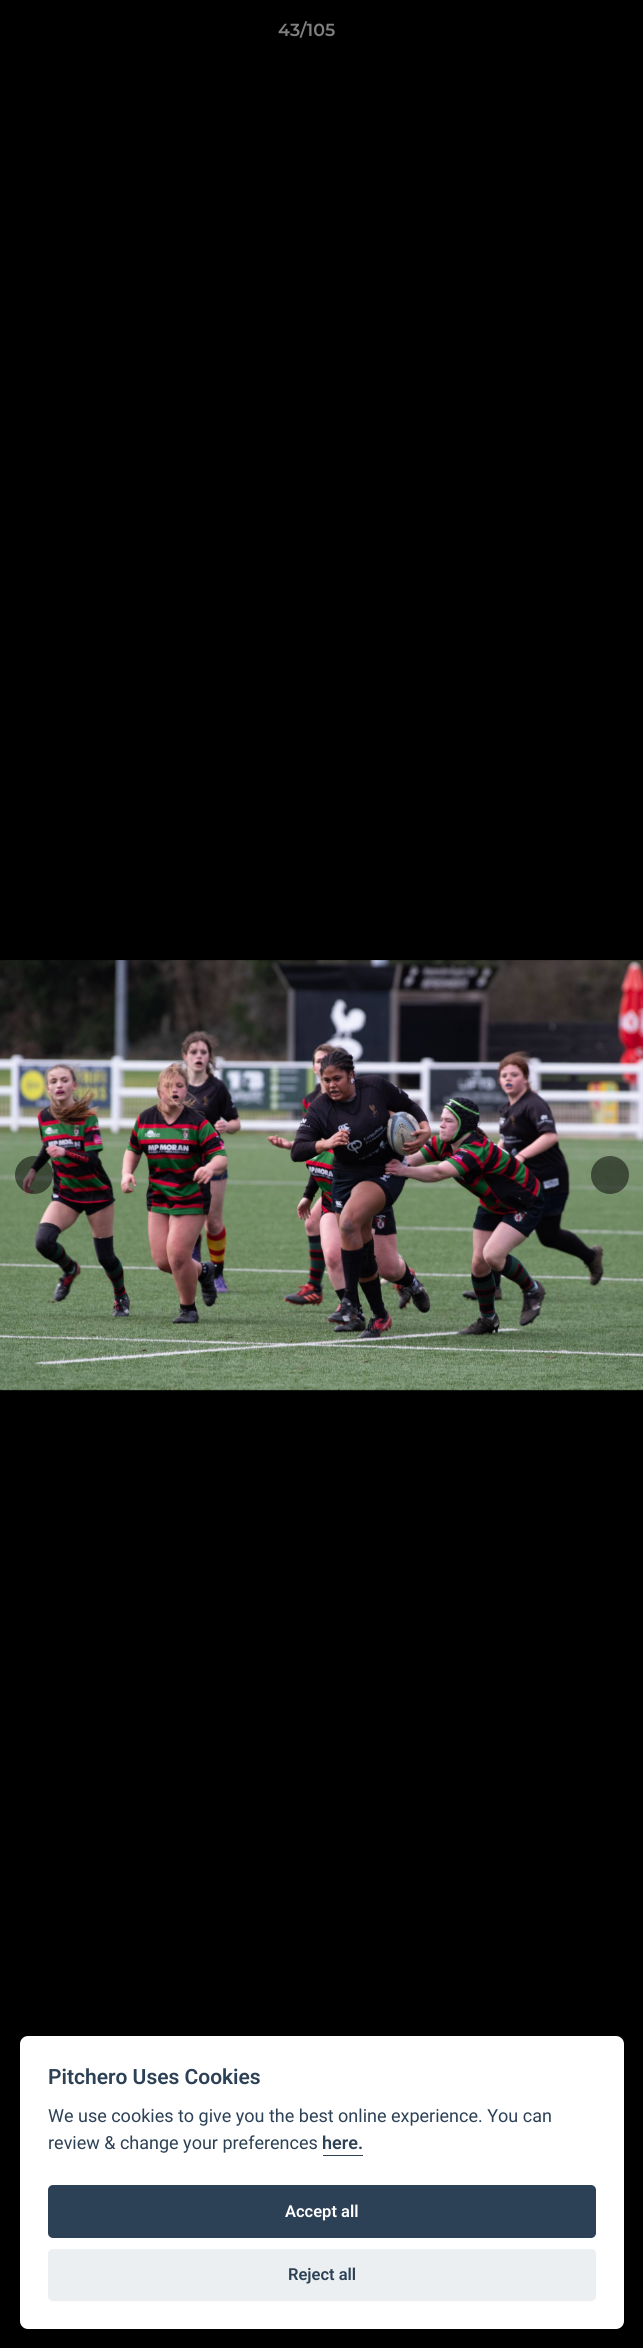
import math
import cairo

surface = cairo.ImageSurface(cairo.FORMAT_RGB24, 643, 2348)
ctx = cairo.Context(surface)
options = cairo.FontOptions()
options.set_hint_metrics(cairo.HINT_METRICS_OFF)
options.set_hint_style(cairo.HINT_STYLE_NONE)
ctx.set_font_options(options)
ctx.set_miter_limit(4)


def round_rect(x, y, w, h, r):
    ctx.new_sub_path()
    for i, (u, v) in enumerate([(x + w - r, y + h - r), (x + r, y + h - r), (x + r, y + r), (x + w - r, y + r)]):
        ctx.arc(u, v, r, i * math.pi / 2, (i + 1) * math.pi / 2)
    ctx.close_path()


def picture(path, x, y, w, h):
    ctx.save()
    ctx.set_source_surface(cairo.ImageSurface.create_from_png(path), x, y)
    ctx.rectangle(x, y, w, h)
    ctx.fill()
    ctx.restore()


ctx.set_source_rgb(0, 0, 0)
ctx.paint()
ctx.select_font_face("Montserrat SemiBold")
ctx.set_font_size(17.5)
ctx.set_source_rgb(0.502, 0.502, 0.502)
ctx.move_to(278, 36)
ctx.show_text("43/105")
picture("img1.png", 0, 960, 643, 431)
ctx.set_source_rgba(0, 0, 0, 0.5)
ctx.arc(34, 1175, 19, 0, 2 * math.pi)
ctx.fill()
ctx.arc(610, 1175, 19, 0, 2 * math.pi)
ctx.fill()
ctx.set_source_rgb(1, 1, 1)
round_rect(20, 2036, 604, 293, 8)
ctx.fill()
ctx.select_font_face("Roboto SemiBold")
ctx.set_font_size(21)
ctx.set_source_rgb(0.176, 0.255, 0.337)
ctx.move_to(48, 2084)
ctx.show_text("Pitchero Uses Cookies")
ctx.select_font_face("Roboto")
ctx.set_font_size(18)
ctx.move_to(48, 2122)
ctx.show_text("We use cookies to give you the best online experience. You can")
ctx.move_to(48, 2149)
ctx.show_text("review & change your preferences")
ctx.select_font_face("Roboto SemiBold")
ctx.move_to(322, 2149)
ctx.show_text("here.")
ctx.rectangle(323, 2155, 40, 1)
ctx.fill()
round_rect(48, 2185, 548, 53, 5)
ctx.fill()
ctx.set_font_size(16.5)
ctx.set_source_rgb(1, 1, 1)
ctx.move_to(285, 2217)
ctx.show_text("Accept all")
ctx.set_source_rgb(0.918, 0.937, 0.949)
round_rect(48, 2249, 548, 52, 5)
ctx.fill()
ctx.set_source_rgb(0.176, 0.255, 0.337)
ctx.move_to(288, 2280)
ctx.show_text("Reject all")
surface.write_to_png("page.png")
